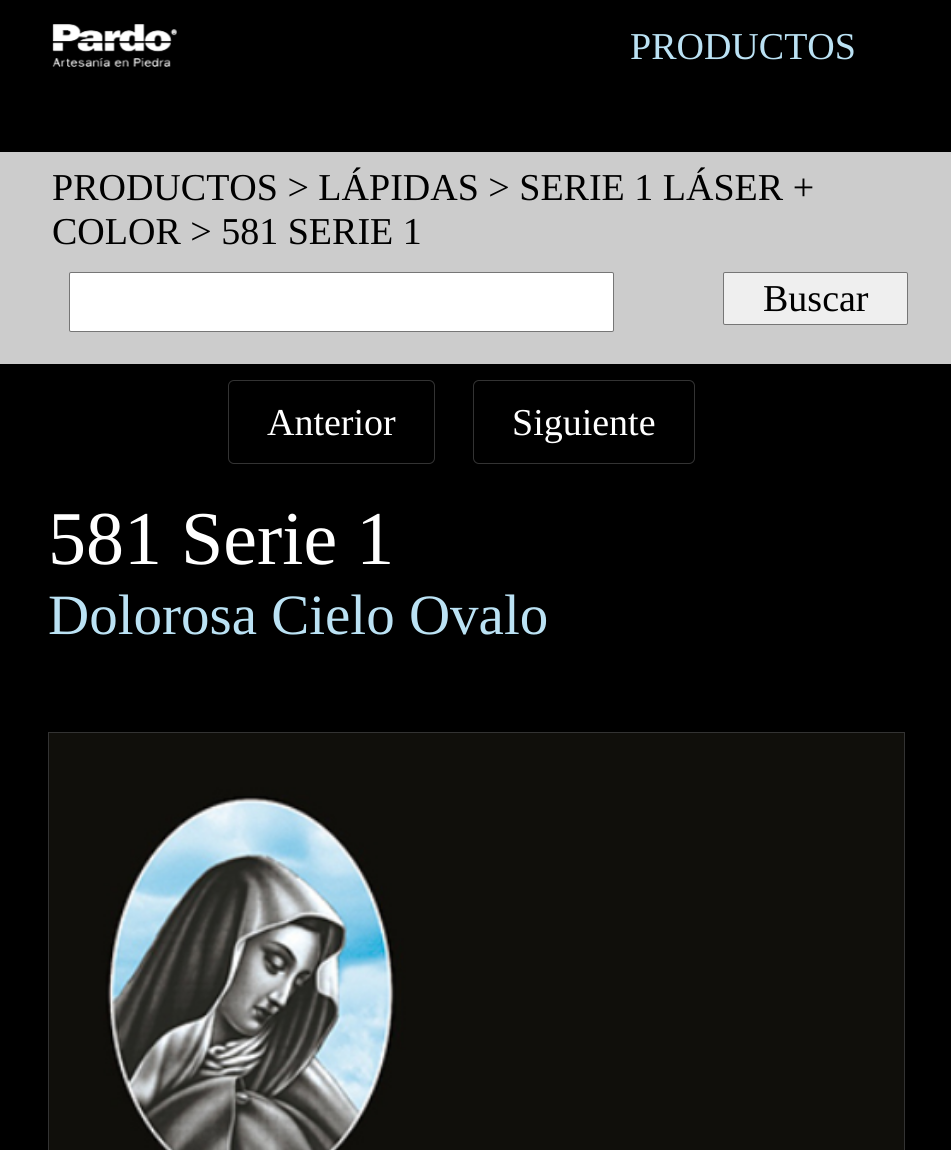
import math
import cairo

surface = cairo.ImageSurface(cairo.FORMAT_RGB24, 951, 1150)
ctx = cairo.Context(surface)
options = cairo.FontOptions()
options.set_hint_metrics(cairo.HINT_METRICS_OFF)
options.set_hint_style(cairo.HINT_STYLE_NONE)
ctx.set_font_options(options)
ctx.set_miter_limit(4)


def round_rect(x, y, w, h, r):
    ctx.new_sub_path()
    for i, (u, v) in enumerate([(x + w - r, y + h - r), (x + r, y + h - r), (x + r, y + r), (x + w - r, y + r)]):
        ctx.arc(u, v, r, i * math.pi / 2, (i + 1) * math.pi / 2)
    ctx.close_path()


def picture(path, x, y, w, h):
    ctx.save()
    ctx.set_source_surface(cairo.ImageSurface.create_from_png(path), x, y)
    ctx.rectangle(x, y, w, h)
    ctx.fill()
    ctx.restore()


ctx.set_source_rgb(0, 0, 0)
ctx.paint()
picture("img1.png", 52, 24, 125, 43)
ctx.select_font_face("Liberation Serif")
ctx.set_font_size(38)
ctx.set_source_rgb(0.733, 0.886, 0.957)
ctx.move_to(630, 59)
ctx.show_text("PRODUCTOS")
ctx.set_source_rgb(0.8, 0.8, 0.8)
ctx.rectangle(0, 152, 951, 212)
ctx.fill()
ctx.set_source_rgb(0, 0, 0)
ctx.move_to(52, 200)
ctx.show_text("PRODUCTOS > LÁPIDAS > SERIE 1 LÁSER +")
ctx.move_to(52, 244)
ctx.show_text("COLOR > 581 SERIE 1")
ctx.set_source_rgb(1, 1, 1)
round_rect(69.5, 272.5, 544, 59, 1.5)
ctx.fill_preserve()
ctx.set_source_rgb(0.463, 0.463, 0.463)
ctx.set_line_width(1)
ctx.stroke()
ctx.set_source_rgb(0.937, 0.937, 0.937)
round_rect(723.5, 272.5, 184, 52, 1.5)
ctx.fill_preserve()
ctx.set_source_rgb(0.463, 0.463, 0.463)
ctx.stroke()
ctx.set_source_rgb(0, 0, 0)
ctx.move_to(763, 311)
ctx.show_text("Buscar")
round_rect(228.5, 380.5, 206, 83, 5.5)
ctx.set_source_rgb(0.2, 0.2, 0.2)
ctx.stroke()
ctx.set_source_rgb(1, 1, 1)
ctx.move_to(267, 435)
ctx.show_text("Anterior")
round_rect(473.5, 380.5, 221, 83, 5.5)
ctx.set_source_rgb(0.2, 0.2, 0.2)
ctx.stroke()
ctx.set_source_rgb(1, 1, 1)
ctx.move_to(512, 435)
ctx.show_text("Siguiente")
ctx.set_font_size(76)
ctx.move_to(48, 564)
ctx.show_text("581 Serie 1")
ctx.set_font_size(57)
ctx.set_source_rgb(0.733, 0.886, 0.957)
ctx.move_to(48, 634)
ctx.show_text("Dolorosa Cielo Ovalo")
ctx.rectangle(48.5, 732.5, 856, 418)
ctx.set_source_rgb(0.2, 0.2, 0.2)
ctx.stroke()
picture("img2.png", 49, 733, 855, 417)
surface.write_to_png("page.png")
